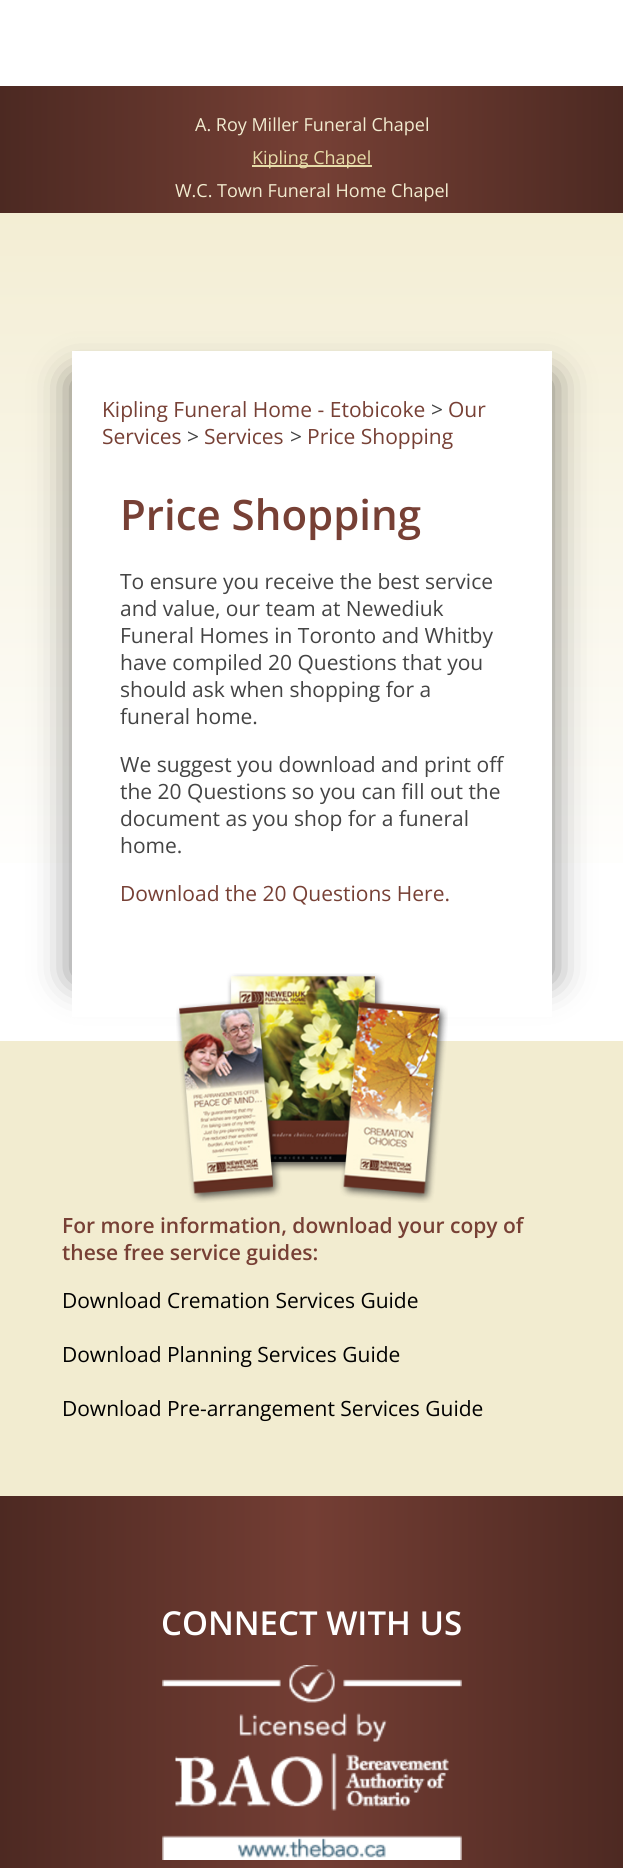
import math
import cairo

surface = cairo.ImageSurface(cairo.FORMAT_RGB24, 623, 1868)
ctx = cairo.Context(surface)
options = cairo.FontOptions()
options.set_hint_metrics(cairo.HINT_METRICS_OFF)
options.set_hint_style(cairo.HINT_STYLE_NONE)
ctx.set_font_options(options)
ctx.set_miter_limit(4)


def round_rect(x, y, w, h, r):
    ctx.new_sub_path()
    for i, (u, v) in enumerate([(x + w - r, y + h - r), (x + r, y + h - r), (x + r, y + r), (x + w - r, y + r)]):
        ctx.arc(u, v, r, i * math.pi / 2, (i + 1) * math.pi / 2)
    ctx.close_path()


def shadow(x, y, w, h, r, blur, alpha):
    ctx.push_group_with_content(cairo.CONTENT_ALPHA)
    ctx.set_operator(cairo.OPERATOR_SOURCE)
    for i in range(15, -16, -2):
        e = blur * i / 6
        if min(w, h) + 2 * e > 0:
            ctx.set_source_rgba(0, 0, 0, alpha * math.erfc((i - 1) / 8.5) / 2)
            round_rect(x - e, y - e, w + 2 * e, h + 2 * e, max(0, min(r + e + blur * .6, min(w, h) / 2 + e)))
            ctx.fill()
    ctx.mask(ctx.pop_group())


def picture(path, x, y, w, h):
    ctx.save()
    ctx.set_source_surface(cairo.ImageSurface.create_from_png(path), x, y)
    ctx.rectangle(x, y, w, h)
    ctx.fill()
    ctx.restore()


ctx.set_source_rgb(1, 1, 1)
ctx.paint()
gradient = cairo.LinearGradient(0, 149, 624, 149)
gradient.add_color_stop_rgba(0, 0.298, 0.161, 0.133, 1)
gradient.add_color_stop_rgba(0.5, 0.463, 0.251, 0.208, 1)
gradient.add_color_stop_rgba(1, 0.298, 0.161, 0.133, 1)
ctx.set_source(gradient)
ctx.rectangle(0, 86, 623, 127)
ctx.fill()
ctx.select_font_face("Open Sans")
ctx.set_font_size(18)
ctx.set_source_rgb(0.949, 0.925, 0.816)
ctx.move_to(195, 131)
ctx.show_text("A. Roy Miller Funeral Chapel")
ctx.set_source_rgb(0.906, 0.863, 0.663)
ctx.rectangle(252, 165, 120, 2)
ctx.fill()
ctx.move_to(252, 164)
ctx.show_text("Kipling Chapel")
ctx.set_source_rgb(0.949, 0.925, 0.816)
ctx.move_to(175, 197)
ctx.show_text("W.C. Town Funeral Home Chapel")
gradient = cairo.LinearGradient(312, 153, 312, 903)
gradient.add_color_stop_rgba(0, 0.949, 0.925, 0.816, 1)
gradient.add_color_stop_rgba(1, 1, 1, 1, 1)
ctx.set_source(gradient)
ctx.rectangle(0, 213, 623, 650)
ctx.fill()
ctx.set_source_rgb(0, 0, 0)
shadow(72, 378, 480, 600, 0, 19, 0.5)
ctx.set_source_rgb(1, 1, 1)
ctx.rectangle(72, 351, 480, 666)
ctx.fill()
ctx.set_font_size(21)
ctx.set_source_rgb(0.467, 0.251, 0.208)
ctx.move_to(102, 417)
ctx.show_text("Kipling Funeral Home - Etobicoke")
ctx.set_source_rgb(0.267, 0.267, 0.267)
ctx.move_to(431, 417)
ctx.show_text(">")
ctx.set_source_rgb(0.467, 0.251, 0.208)
ctx.move_to(448, 417)
ctx.show_text("Our")
ctx.move_to(102, 444)
ctx.show_text("Services")
ctx.set_source_rgb(0.267, 0.267, 0.267)
ctx.move_to(187, 444)
ctx.show_text(">")
ctx.set_source_rgb(0.467, 0.251, 0.208)
ctx.move_to(204, 444)
ctx.show_text("Services")
ctx.set_source_rgb(0.267, 0.267, 0.267)
ctx.move_to(290, 444)
ctx.show_text(">")
ctx.set_source_rgb(0.467, 0.251, 0.208)
ctx.move_to(307, 444)
ctx.show_text("Price Shopping")
ctx.select_font_face("Open Sans SemiBold")
ctx.set_font_size(42)
ctx.move_to(120, 530)
ctx.show_text("Price Shopping")
ctx.select_font_face("Open Sans")
ctx.set_font_size(21)
ctx.set_source_rgb(0.267, 0.267, 0.267)
ctx.move_to(120, 589)
ctx.show_text("To ensure you receive the best service")
ctx.move_to(120, 616)
ctx.show_text("and value, our team at Newediuk")
ctx.move_to(120, 643)
ctx.show_text("Funeral Homes in Toronto and Whitby")
ctx.move_to(120, 670)
ctx.show_text("have compiled 20 Questions that you")
ctx.move_to(120, 697)
ctx.show_text("should ask when shopping for a")
ctx.move_to(120, 724)
ctx.show_text("funeral home.")
ctx.move_to(120, 772)
ctx.show_text("We suggest you download and print off")
ctx.move_to(120, 799)
ctx.show_text("the 20 Questions so you can fill out the")
ctx.move_to(120, 826)
ctx.show_text("document as you shop for a funeral")
ctx.move_to(120, 853)
ctx.show_text("home.")
ctx.set_source_rgb(0.467, 0.251, 0.208)
ctx.move_to(120, 901)
ctx.show_text("Download the 20 Questions Here.")
ctx.set_source_rgb(0.949, 0.925, 0.816)
ctx.rectangle(0, 1041, 623, 455)
ctx.fill()
picture("img1.png", 176, 973, 272, 230)
ctx.select_font_face("Open Sans SemiBold")
ctx.set_source_rgb(0.467, 0.251, 0.208)
ctx.move_to(62, 1233)
ctx.show_text("For more information, download your copy of")
ctx.move_to(62, 1260)
ctx.show_text("these free service guides:")
ctx.select_font_face("Open Sans")
ctx.set_source_rgb(0, 0, 0)
ctx.move_to(62, 1308)
ctx.show_text("Download Cremation Services Guide")
ctx.move_to(62, 1362)
ctx.show_text("Download Planning Services Guide")
ctx.move_to(62, 1416)
ctx.show_text("Download Pre-arrangement Services Guide")
gradient = cairo.LinearGradient(0, 1837, 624, 1837)
gradient.add_color_stop_rgba(0, 0.302, 0.161, 0.133, 1)
gradient.add_color_stop_rgba(0.5, 0.455, 0.243, 0.204, 1)
gradient.add_color_stop_rgba(1, 0.302, 0.161, 0.133, 1)
ctx.set_source(gradient)
ctx.rectangle(0, 1496, 623, 372)
ctx.fill()
ctx.select_font_face("Open Sans SemiBold")
ctx.set_font_size(33)
ctx.set_source_rgb(1, 1, 1)
ctx.move_to(161, 1635)
ctx.show_text("CONNECT WITH US")
picture("img2.png", 162, 1665, 300, 195)
surface.write_to_png("page.png")
